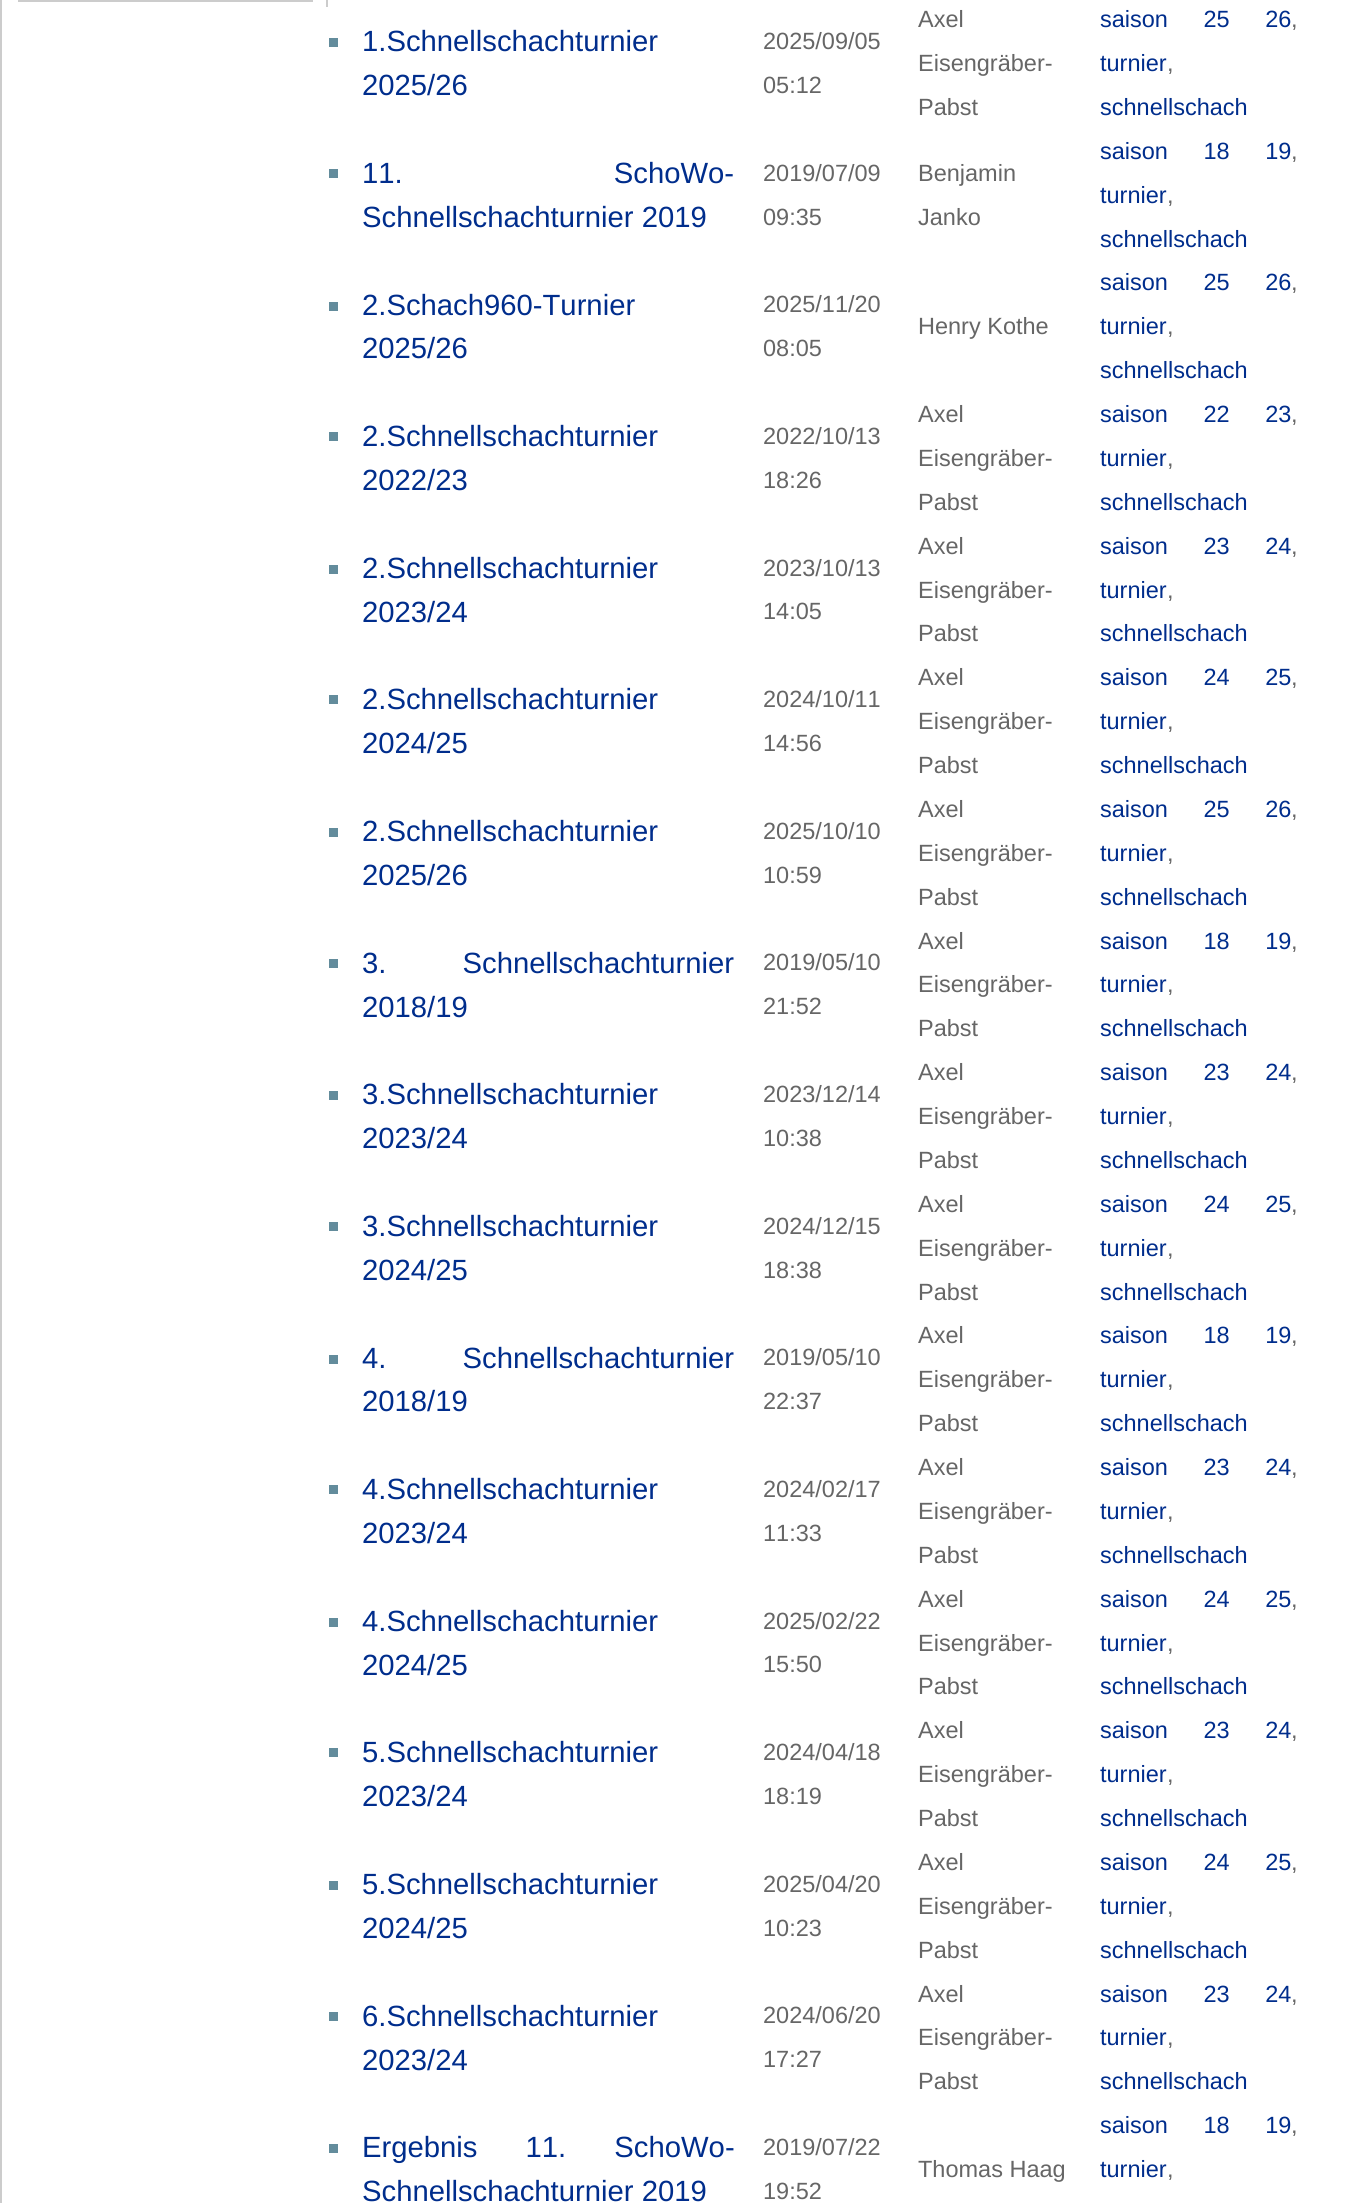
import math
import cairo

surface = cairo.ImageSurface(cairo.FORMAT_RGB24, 1368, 2203)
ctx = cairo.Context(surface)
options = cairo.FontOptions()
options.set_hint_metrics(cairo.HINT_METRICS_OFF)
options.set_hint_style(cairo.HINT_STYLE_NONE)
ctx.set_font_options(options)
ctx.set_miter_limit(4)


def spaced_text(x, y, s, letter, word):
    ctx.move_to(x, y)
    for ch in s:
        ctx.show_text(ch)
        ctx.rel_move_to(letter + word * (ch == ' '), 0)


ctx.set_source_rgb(1, 1, 1)
ctx.paint()
ctx.rectangle(1, -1, 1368, 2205)
ctx.set_source_rgb(0.8, 0.8, 0.8)
ctx.stroke()
ctx.rectangle(326, 0, 2, 7)
ctx.fill()
ctx.rectangle(19, -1, 293, 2)
ctx.stroke()
ctx.set_source_rgb(0.388, 0.549, 0.612)
ctx.rectangle(329, 38, 9, 9)
ctx.fill()
ctx.select_font_face("Liberation Sans")
ctx.set_font_size(29.25)
ctx.set_source_rgb(0, 0.176, 0.549)
ctx.move_to(362, 51)
ctx.show_text("1.Schnellschachturnier")
ctx.move_to(362, 95)
ctx.show_text("2025/26")
ctx.set_font_size(23.5)
ctx.set_source_rgb(0.4, 0.4, 0.4)
ctx.move_to(763, 49)
ctx.show_text("2025/09/05")
ctx.move_to(763, 93)
ctx.show_text("05:12")
ctx.move_to(918, 27)
ctx.show_text("Axel")
ctx.move_to(918, 71)
ctx.show_text("Eisengräber-")
ctx.move_to(918, 115)
ctx.show_text("Pabst")
ctx.set_source_rgb(0, 0.176, 0.549)
spaced_text(1100, 27, "saison 25 26", 0, 29)
ctx.set_source_rgb(0.4, 0.4, 0.4)
ctx.move_to(1291, 27)
ctx.show_text(",")
ctx.set_source_rgb(0, 0.176, 0.549)
ctx.move_to(1100, 71)
ctx.show_text("turnier")
ctx.set_source_rgb(0.4, 0.4, 0.4)
ctx.move_to(1167, 71)
ctx.show_text(",")
ctx.set_source_rgb(0, 0.176, 0.549)
ctx.move_to(1100, 115)
ctx.show_text("schnellschach")
ctx.set_source_rgb(0.388, 0.549, 0.612)
ctx.rectangle(329, 169, 9, 9)
ctx.fill()
ctx.set_font_size(29.25)
ctx.set_source_rgb(0, 0.176, 0.549)
spaced_text(362, 183, "11. SchoWo-", 0, 203)
ctx.move_to(362, 227)
ctx.show_text("Schnellschachturnier 2019")
ctx.set_font_size(23.5)
ctx.set_source_rgb(0.4, 0.4, 0.4)
ctx.move_to(763, 181)
ctx.show_text("2019/07/09")
ctx.move_to(763, 225)
ctx.show_text("09:35")
ctx.move_to(918, 181)
ctx.show_text("Benjamin")
ctx.move_to(918, 225)
ctx.show_text("Janko")
ctx.set_source_rgb(0, 0.176, 0.549)
spaced_text(1100, 159, "saison 18 19", 0, 29)
ctx.set_source_rgb(0.4, 0.4, 0.4)
ctx.move_to(1291, 159)
ctx.show_text(",")
ctx.set_source_rgb(0, 0.176, 0.549)
ctx.move_to(1100, 203)
ctx.show_text("turnier")
ctx.set_source_rgb(0.4, 0.4, 0.4)
ctx.move_to(1167, 203)
ctx.show_text(",")
ctx.set_source_rgb(0, 0.176, 0.549)
ctx.move_to(1100, 247)
ctx.show_text("schnellschach")
ctx.set_source_rgb(0.388, 0.549, 0.612)
ctx.rectangle(329, 302, 9, 9)
ctx.fill()
ctx.set_font_size(29.25)
ctx.set_source_rgb(0, 0.176, 0.549)
ctx.move_to(362, 315)
ctx.show_text("2.Schach960-Turnier")
ctx.move_to(362, 358)
ctx.show_text("2025/26")
ctx.set_font_size(23.5)
ctx.set_source_rgb(0.4, 0.4, 0.4)
ctx.move_to(763, 312)
ctx.show_text("2025/11/20")
ctx.move_to(763, 356)
ctx.show_text("08:05")
ctx.move_to(918, 334)
ctx.show_text("Henry Kothe")
ctx.set_source_rgb(0, 0.176, 0.549)
spaced_text(1100, 290, "saison 25 26", 0, 29)
ctx.set_source_rgb(0.4, 0.4, 0.4)
ctx.move_to(1291, 290)
ctx.show_text(",")
ctx.set_source_rgb(0, 0.176, 0.549)
ctx.move_to(1100, 334)
ctx.show_text("turnier")
ctx.set_source_rgb(0.4, 0.4, 0.4)
ctx.move_to(1167, 334)
ctx.show_text(",")
ctx.set_source_rgb(0, 0.176, 0.549)
ctx.move_to(1100, 378)
ctx.show_text("schnellschach")
ctx.set_source_rgb(0.388, 0.549, 0.612)
ctx.rectangle(329, 432, 9, 9)
ctx.fill()
ctx.set_font_size(29.25)
ctx.set_source_rgb(0, 0.176, 0.549)
ctx.move_to(362, 446)
ctx.show_text("2.Schnellschachturnier")
ctx.move_to(362, 490)
ctx.show_text("2022/23")
ctx.set_font_size(23.5)
ctx.set_source_rgb(0.4, 0.4, 0.4)
ctx.move_to(763, 444)
ctx.show_text("2022/10/13")
ctx.move_to(763, 488)
ctx.show_text("18:26")
ctx.move_to(918, 422)
ctx.show_text("Axel")
ctx.move_to(918, 466)
ctx.show_text("Eisengräber-")
ctx.move_to(918, 510)
ctx.show_text("Pabst")
ctx.set_source_rgb(0, 0.176, 0.549)
spaced_text(1100, 422, "saison 22 23", 0, 29)
ctx.set_source_rgb(0.4, 0.4, 0.4)
ctx.move_to(1291, 422)
ctx.show_text(",")
ctx.set_source_rgb(0, 0.176, 0.549)
ctx.move_to(1100, 466)
ctx.show_text("turnier")
ctx.set_source_rgb(0.4, 0.4, 0.4)
ctx.move_to(1167, 466)
ctx.show_text(",")
ctx.set_source_rgb(0, 0.176, 0.549)
ctx.move_to(1100, 510)
ctx.show_text("schnellschach")
ctx.set_source_rgb(0.388, 0.549, 0.612)
ctx.rectangle(329, 565, 9, 9)
ctx.fill()
ctx.set_font_size(29.25)
ctx.set_source_rgb(0, 0.176, 0.549)
ctx.move_to(362, 578)
ctx.show_text("2.Schnellschachturnier")
ctx.move_to(362, 622)
ctx.show_text("2023/24")
ctx.set_font_size(23.5)
ctx.set_source_rgb(0.4, 0.4, 0.4)
ctx.move_to(763, 576)
ctx.show_text("2023/10/13")
ctx.move_to(763, 619)
ctx.show_text("14:05")
ctx.move_to(918, 554)
ctx.show_text("Axel")
ctx.move_to(918, 598)
ctx.show_text("Eisengräber-")
ctx.move_to(918, 641)
ctx.show_text("Pabst")
ctx.set_source_rgb(0, 0.176, 0.549)
spaced_text(1100, 554, "saison 23 24", 0, 29)
ctx.set_source_rgb(0.4, 0.4, 0.4)
ctx.move_to(1291, 554)
ctx.show_text(",")
ctx.set_source_rgb(0, 0.176, 0.549)
ctx.move_to(1100, 598)
ctx.show_text("turnier")
ctx.set_source_rgb(0.4, 0.4, 0.4)
ctx.move_to(1167, 598)
ctx.show_text(",")
ctx.set_source_rgb(0, 0.176, 0.549)
ctx.move_to(1100, 641)
ctx.show_text("schnellschach")
ctx.set_source_rgb(0.388, 0.549, 0.612)
ctx.rectangle(329, 695, 9, 9)
ctx.fill()
ctx.set_font_size(29.25)
ctx.set_source_rgb(0, 0.176, 0.549)
ctx.move_to(362, 709)
ctx.show_text("2.Schnellschachturnier")
ctx.move_to(362, 753)
ctx.show_text("2024/25")
ctx.set_font_size(23.5)
ctx.set_source_rgb(0.4, 0.4, 0.4)
ctx.move_to(763, 707)
ctx.show_text("2024/10/11")
ctx.move_to(763, 751)
ctx.show_text("14:56")
ctx.move_to(918, 685)
ctx.show_text("Axel")
ctx.move_to(918, 729)
ctx.show_text("Eisengräber-")
ctx.move_to(918, 773)
ctx.show_text("Pabst")
ctx.set_source_rgb(0, 0.176, 0.549)
spaced_text(1100, 685, "saison 24 25", 0, 29)
ctx.set_source_rgb(0.4, 0.4, 0.4)
ctx.move_to(1291, 685)
ctx.show_text(",")
ctx.set_source_rgb(0, 0.176, 0.549)
ctx.move_to(1100, 729)
ctx.show_text("turnier")
ctx.set_source_rgb(0.4, 0.4, 0.4)
ctx.move_to(1167, 729)
ctx.show_text(",")
ctx.set_source_rgb(0, 0.176, 0.549)
ctx.move_to(1100, 773)
ctx.show_text("schnellschach")
ctx.set_source_rgb(0.388, 0.549, 0.612)
ctx.rectangle(329, 828, 9, 9)
ctx.fill()
ctx.set_font_size(29.25)
ctx.set_source_rgb(0, 0.176, 0.549)
ctx.move_to(362, 841)
ctx.show_text("2.Schnellschachturnier")
ctx.move_to(362, 885)
ctx.show_text("2025/26")
ctx.set_font_size(23.5)
ctx.set_source_rgb(0.4, 0.4, 0.4)
ctx.move_to(763, 839)
ctx.show_text("2025/10/10")
ctx.move_to(763, 883)
ctx.show_text("10:59")
ctx.move_to(918, 817)
ctx.show_text("Axel")
ctx.move_to(918, 861)
ctx.show_text("Eisengräber-")
ctx.move_to(918, 905)
ctx.show_text("Pabst")
ctx.set_source_rgb(0, 0.176, 0.549)
spaced_text(1100, 817, "saison 25 26", 0, 29)
ctx.set_source_rgb(0.4, 0.4, 0.4)
ctx.move_to(1291, 817)
ctx.show_text(",")
ctx.set_source_rgb(0, 0.176, 0.549)
ctx.move_to(1100, 861)
ctx.show_text("turnier")
ctx.set_source_rgb(0.4, 0.4, 0.4)
ctx.move_to(1167, 861)
ctx.show_text(",")
ctx.set_source_rgb(0, 0.176, 0.549)
ctx.move_to(1100, 905)
ctx.show_text("schnellschach")
ctx.set_source_rgb(0.388, 0.549, 0.612)
ctx.rectangle(329, 959, 9, 9)
ctx.fill()
ctx.set_font_size(29.25)
ctx.set_source_rgb(0, 0.176, 0.549)
spaced_text(362, 973, "3. Schnellschachturnier", 0, 68)
ctx.move_to(362, 1017)
ctx.show_text("2018/19")
ctx.set_font_size(23.5)
ctx.set_source_rgb(0.4, 0.4, 0.4)
ctx.move_to(763, 970)
ctx.show_text("2019/05/10")
ctx.move_to(763, 1014)
ctx.show_text("21:52")
ctx.move_to(918, 949)
ctx.show_text("Axel")
ctx.move_to(918, 992)
ctx.show_text("Eisengräber-")
ctx.move_to(918, 1036)
ctx.show_text("Pabst")
ctx.set_source_rgb(0, 0.176, 0.549)
spaced_text(1100, 949, "saison 18 19", 0, 29)
ctx.set_source_rgb(0.4, 0.4, 0.4)
ctx.move_to(1291, 949)
ctx.show_text(",")
ctx.set_source_rgb(0, 0.176, 0.549)
ctx.move_to(1100, 992)
ctx.show_text("turnier")
ctx.set_source_rgb(0.4, 0.4, 0.4)
ctx.move_to(1167, 992)
ctx.show_text(",")
ctx.set_source_rgb(0, 0.176, 0.549)
ctx.move_to(1100, 1036)
ctx.show_text("schnellschach")
ctx.set_source_rgb(0.388, 0.549, 0.612)
ctx.rectangle(329, 1091, 9, 9)
ctx.fill()
ctx.set_font_size(29.25)
ctx.set_source_rgb(0, 0.176, 0.549)
ctx.move_to(362, 1104)
ctx.show_text("3.Schnellschachturnier")
ctx.move_to(362, 1148)
ctx.show_text("2023/24")
ctx.set_font_size(23.5)
ctx.set_source_rgb(0.4, 0.4, 0.4)
ctx.move_to(763, 1102)
ctx.show_text("2023/12/14")
ctx.move_to(763, 1146)
ctx.show_text("10:38")
ctx.move_to(918, 1080)
ctx.show_text("Axel")
ctx.move_to(918, 1124)
ctx.show_text("Eisengräber-")
ctx.move_to(918, 1168)
ctx.show_text("Pabst")
ctx.set_source_rgb(0, 0.176, 0.549)
spaced_text(1100, 1080, "saison 23 24", 0, 29)
ctx.set_source_rgb(0.4, 0.4, 0.4)
ctx.move_to(1291, 1080)
ctx.show_text(",")
ctx.set_source_rgb(0, 0.176, 0.549)
ctx.move_to(1100, 1124)
ctx.show_text("turnier")
ctx.set_source_rgb(0.4, 0.4, 0.4)
ctx.move_to(1167, 1124)
ctx.show_text(",")
ctx.set_source_rgb(0, 0.176, 0.549)
ctx.move_to(1100, 1168)
ctx.show_text("schnellschach")
ctx.set_source_rgb(0.388, 0.549, 0.612)
ctx.rectangle(329, 1222, 9, 9)
ctx.fill()
ctx.set_font_size(29.25)
ctx.set_source_rgb(0, 0.176, 0.549)
ctx.move_to(362, 1236)
ctx.show_text("3.Schnellschachturnier")
ctx.move_to(362, 1280)
ctx.show_text("2024/25")
ctx.set_font_size(23.5)
ctx.set_source_rgb(0.4, 0.4, 0.4)
ctx.move_to(763, 1234)
ctx.show_text("2024/12/15")
ctx.move_to(763, 1278)
ctx.show_text("18:38")
ctx.move_to(918, 1212)
ctx.show_text("Axel")
ctx.move_to(918, 1256)
ctx.show_text("Eisengräber-")
ctx.move_to(918, 1300)
ctx.show_text("Pabst")
ctx.set_source_rgb(0, 0.176, 0.549)
spaced_text(1100, 1212, "saison 24 25", 0, 29)
ctx.set_source_rgb(0.4, 0.4, 0.4)
ctx.move_to(1291, 1212)
ctx.show_text(",")
ctx.set_source_rgb(0, 0.176, 0.549)
ctx.move_to(1100, 1256)
ctx.show_text("turnier")
ctx.set_source_rgb(0.4, 0.4, 0.4)
ctx.move_to(1167, 1256)
ctx.show_text(",")
ctx.set_source_rgb(0, 0.176, 0.549)
ctx.move_to(1100, 1300)
ctx.show_text("schnellschach")
ctx.set_source_rgb(0.388, 0.549, 0.612)
ctx.rectangle(329, 1355, 9, 9)
ctx.fill()
ctx.set_font_size(29.25)
ctx.set_source_rgb(0, 0.176, 0.549)
spaced_text(362, 1368, "4. Schnellschachturnier", 0, 68)
ctx.move_to(362, 1411)
ctx.show_text("2018/19")
ctx.set_font_size(23.5)
ctx.set_source_rgb(0.4, 0.4, 0.4)
ctx.move_to(763, 1365)
ctx.show_text("2019/05/10")
ctx.move_to(763, 1409)
ctx.show_text("22:37")
ctx.move_to(918, 1343)
ctx.show_text("Axel")
ctx.move_to(918, 1387)
ctx.show_text("Eisengräber-")
ctx.move_to(918, 1431)
ctx.show_text("Pabst")
ctx.set_source_rgb(0, 0.176, 0.549)
spaced_text(1100, 1343, "saison 18 19", 0, 29)
ctx.set_source_rgb(0.4, 0.4, 0.4)
ctx.move_to(1291, 1343)
ctx.show_text(",")
ctx.set_source_rgb(0, 0.176, 0.549)
ctx.move_to(1100, 1387)
ctx.show_text("turnier")
ctx.set_source_rgb(0.4, 0.4, 0.4)
ctx.move_to(1167, 1387)
ctx.show_text(",")
ctx.set_source_rgb(0, 0.176, 0.549)
ctx.move_to(1100, 1431)
ctx.show_text("schnellschach")
ctx.set_source_rgb(0.388, 0.549, 0.612)
ctx.rectangle(329, 1485, 9, 9)
ctx.fill()
ctx.set_font_size(29.25)
ctx.set_source_rgb(0, 0.176, 0.549)
ctx.move_to(362, 1499)
ctx.show_text("4.Schnellschachturnier")
ctx.move_to(362, 1543)
ctx.show_text("2023/24")
ctx.set_font_size(23.5)
ctx.set_source_rgb(0.4, 0.4, 0.4)
ctx.move_to(763, 1497)
ctx.show_text("2024/02/17")
ctx.move_to(763, 1541)
ctx.show_text("11:33")
ctx.move_to(918, 1475)
ctx.show_text("Axel")
ctx.move_to(918, 1519)
ctx.show_text("Eisengräber-")
ctx.move_to(918, 1563)
ctx.show_text("Pabst")
ctx.set_source_rgb(0, 0.176, 0.549)
spaced_text(1100, 1475, "saison 23 24", 0, 29)
ctx.set_source_rgb(0.4, 0.4, 0.4)
ctx.move_to(1291, 1475)
ctx.show_text(",")
ctx.set_source_rgb(0, 0.176, 0.549)
ctx.move_to(1100, 1519)
ctx.show_text("turnier")
ctx.set_source_rgb(0.4, 0.4, 0.4)
ctx.move_to(1167, 1519)
ctx.show_text(",")
ctx.set_source_rgb(0, 0.176, 0.549)
ctx.move_to(1100, 1563)
ctx.show_text("schnellschach")
ctx.set_source_rgb(0.388, 0.549, 0.612)
ctx.rectangle(329, 1618, 9, 9)
ctx.fill()
ctx.set_font_size(29.25)
ctx.set_source_rgb(0, 0.176, 0.549)
ctx.move_to(362, 1631)
ctx.show_text("4.Schnellschachturnier")
ctx.move_to(362, 1675)
ctx.show_text("2024/25")
ctx.set_font_size(23.5)
ctx.set_source_rgb(0.4, 0.4, 0.4)
ctx.move_to(763, 1629)
ctx.show_text("2025/02/22")
ctx.move_to(763, 1672)
ctx.show_text("15:50")
ctx.move_to(918, 1607)
ctx.show_text("Axel")
ctx.move_to(918, 1651)
ctx.show_text("Eisengräber-")
ctx.move_to(918, 1694)
ctx.show_text("Pabst")
ctx.set_source_rgb(0, 0.176, 0.549)
spaced_text(1100, 1607, "saison 24 25", 0, 29)
ctx.set_source_rgb(0.4, 0.4, 0.4)
ctx.move_to(1291, 1607)
ctx.show_text(",")
ctx.set_source_rgb(0, 0.176, 0.549)
ctx.move_to(1100, 1651)
ctx.show_text("turnier")
ctx.set_source_rgb(0.4, 0.4, 0.4)
ctx.move_to(1167, 1651)
ctx.show_text(",")
ctx.set_source_rgb(0, 0.176, 0.549)
ctx.move_to(1100, 1694)
ctx.show_text("schnellschach")
ctx.set_source_rgb(0.388, 0.549, 0.612)
ctx.rectangle(329, 1748, 9, 9)
ctx.fill()
ctx.set_font_size(29.25)
ctx.set_source_rgb(0, 0.176, 0.549)
ctx.move_to(362, 1762)
ctx.show_text("5.Schnellschachturnier")
ctx.move_to(362, 1806)
ctx.show_text("2023/24")
ctx.set_font_size(23.5)
ctx.set_source_rgb(0.4, 0.4, 0.4)
ctx.move_to(763, 1760)
ctx.show_text("2024/04/18")
ctx.move_to(763, 1804)
ctx.show_text("18:19")
ctx.move_to(918, 1738)
ctx.show_text("Axel")
ctx.move_to(918, 1782)
ctx.show_text("Eisengräber-")
ctx.move_to(918, 1826)
ctx.show_text("Pabst")
ctx.set_source_rgb(0, 0.176, 0.549)
spaced_text(1100, 1738, "saison 23 24", 0, 29)
ctx.set_source_rgb(0.4, 0.4, 0.4)
ctx.move_to(1291, 1738)
ctx.show_text(",")
ctx.set_source_rgb(0, 0.176, 0.549)
ctx.move_to(1100, 1782)
ctx.show_text("turnier")
ctx.set_source_rgb(0.4, 0.4, 0.4)
ctx.move_to(1167, 1782)
ctx.show_text(",")
ctx.set_source_rgb(0, 0.176, 0.549)
ctx.move_to(1100, 1826)
ctx.show_text("schnellschach")
ctx.set_source_rgb(0.388, 0.549, 0.612)
ctx.rectangle(329, 1881, 9, 9)
ctx.fill()
ctx.set_font_size(29.25)
ctx.set_source_rgb(0, 0.176, 0.549)
ctx.move_to(362, 1894)
ctx.show_text("5.Schnellschachturnier")
ctx.move_to(362, 1938)
ctx.show_text("2024/25")
ctx.set_font_size(23.5)
ctx.set_source_rgb(0.4, 0.4, 0.4)
ctx.move_to(763, 1892)
ctx.show_text("2025/04/20")
ctx.move_to(763, 1936)
ctx.show_text("10:23")
ctx.move_to(918, 1870)
ctx.show_text("Axel")
ctx.move_to(918, 1914)
ctx.show_text("Eisengräber-")
ctx.move_to(918, 1958)
ctx.show_text("Pabst")
ctx.set_source_rgb(0, 0.176, 0.549)
spaced_text(1100, 1870, "saison 24 25", 0, 29)
ctx.set_source_rgb(0.4, 0.4, 0.4)
ctx.move_to(1291, 1870)
ctx.show_text(",")
ctx.set_source_rgb(0, 0.176, 0.549)
ctx.move_to(1100, 1914)
ctx.show_text("turnier")
ctx.set_source_rgb(0.4, 0.4, 0.4)
ctx.move_to(1167, 1914)
ctx.show_text(",")
ctx.set_source_rgb(0, 0.176, 0.549)
ctx.move_to(1100, 1958)
ctx.show_text("schnellschach")
ctx.set_source_rgb(0.388, 0.549, 0.612)
ctx.rectangle(329, 2012, 9, 9)
ctx.fill()
ctx.set_font_size(29.25)
ctx.set_source_rgb(0, 0.176, 0.549)
ctx.move_to(362, 2026)
ctx.show_text("6.Schnellschachturnier")
ctx.move_to(362, 2070)
ctx.show_text("2023/24")
ctx.set_font_size(23.5)
ctx.set_source_rgb(0.4, 0.4, 0.4)
ctx.move_to(763, 2023)
ctx.show_text("2024/06/20")
ctx.move_to(763, 2067)
ctx.show_text("17:27")
ctx.move_to(918, 2002)
ctx.show_text("Axel")
ctx.move_to(918, 2045)
ctx.show_text("Eisengräber-")
ctx.move_to(918, 2089)
ctx.show_text("Pabst")
ctx.set_source_rgb(0, 0.176, 0.549)
spaced_text(1100, 2002, "saison 23 24", 0, 29)
ctx.set_source_rgb(0.4, 0.4, 0.4)
ctx.move_to(1291, 2002)
ctx.show_text(",")
ctx.set_source_rgb(0, 0.176, 0.549)
ctx.move_to(1100, 2045)
ctx.show_text("turnier")
ctx.set_source_rgb(0.4, 0.4, 0.4)
ctx.move_to(1167, 2045)
ctx.show_text(",")
ctx.set_source_rgb(0, 0.176, 0.549)
ctx.move_to(1100, 2089)
ctx.show_text("schnellschach")
ctx.set_source_rgb(0.388, 0.549, 0.612)
ctx.rectangle(329, 2144, 9, 9)
ctx.fill()
ctx.set_font_size(29.25)
ctx.set_source_rgb(0, 0.176, 0.549)
spaced_text(362, 2157, "Ergebnis 11. SchoWo-", 0, 40)
ctx.move_to(362, 2201)
ctx.show_text("Schnellschachturnier 2019")
ctx.set_font_size(23.5)
ctx.set_source_rgb(0.4, 0.4, 0.4)
ctx.move_to(763, 2155)
ctx.show_text("2019/07/22")
ctx.move_to(763, 2199)
ctx.show_text("19:52")
ctx.move_to(918, 2177)
ctx.show_text("Thomas Haag")
ctx.set_source_rgb(0, 0.176, 0.549)
spaced_text(1100, 2133, "saison 18 19", 0, 29)
ctx.set_source_rgb(0.4, 0.4, 0.4)
ctx.move_to(1291, 2133)
ctx.show_text(",")
ctx.set_source_rgb(0, 0.176, 0.549)
ctx.move_to(1100, 2177)
ctx.show_text("turnier")
ctx.set_source_rgb(0.4, 0.4, 0.4)
ctx.move_to(1167, 2177)
ctx.show_text(",")
surface.write_to_png("page.png")
